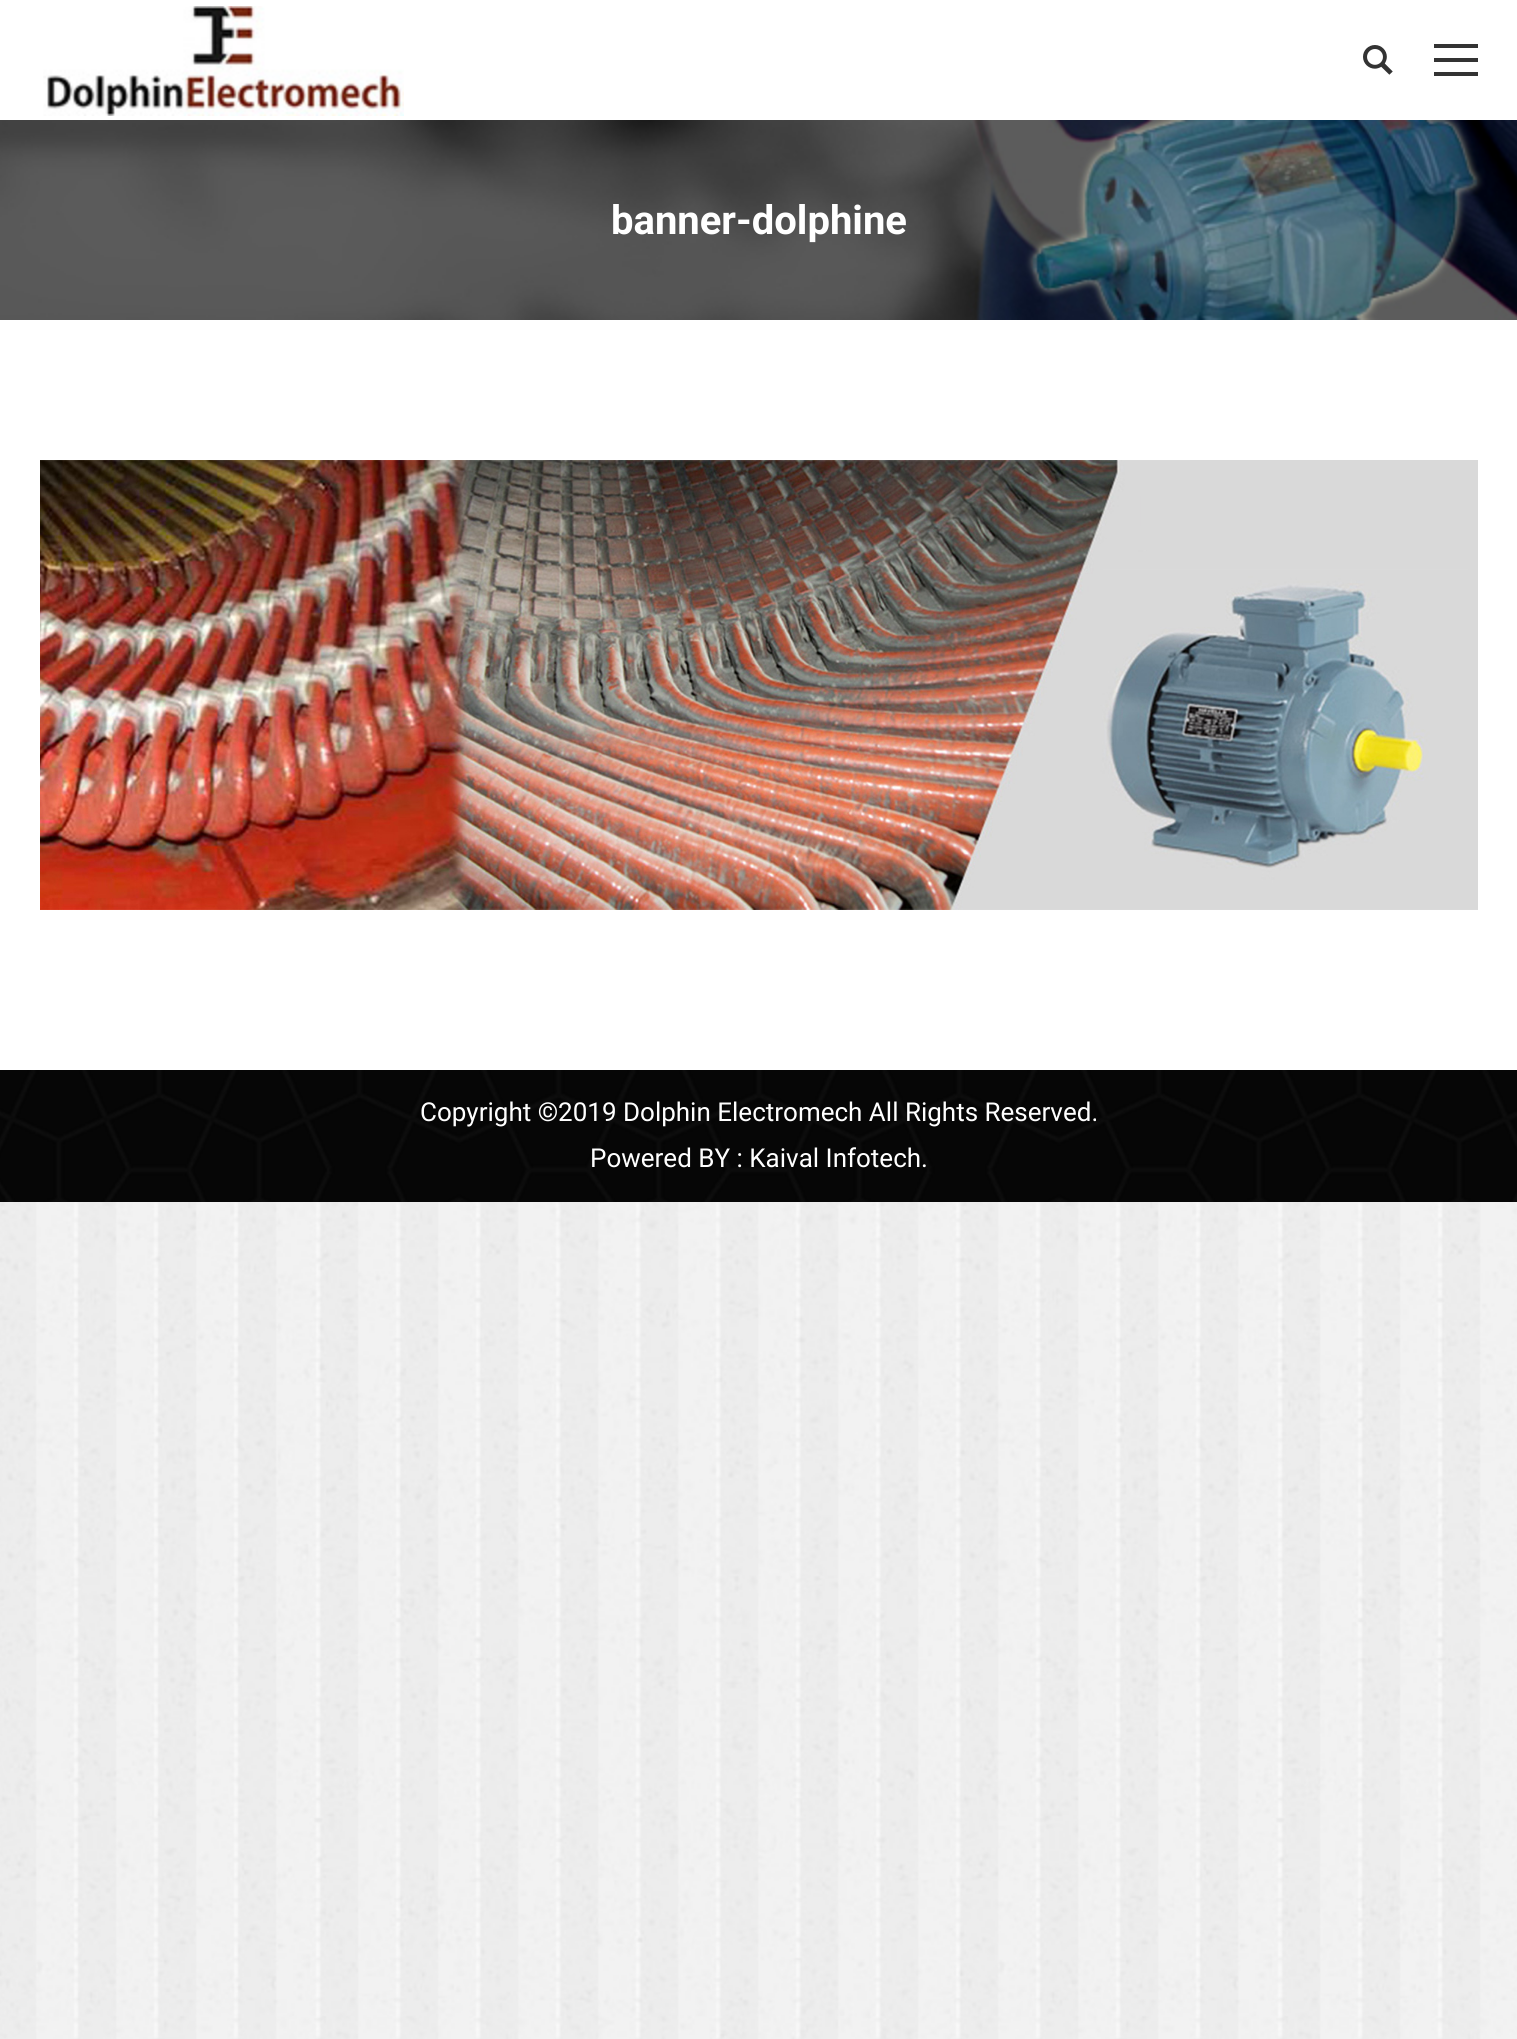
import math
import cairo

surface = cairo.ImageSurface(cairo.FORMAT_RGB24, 1517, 2039)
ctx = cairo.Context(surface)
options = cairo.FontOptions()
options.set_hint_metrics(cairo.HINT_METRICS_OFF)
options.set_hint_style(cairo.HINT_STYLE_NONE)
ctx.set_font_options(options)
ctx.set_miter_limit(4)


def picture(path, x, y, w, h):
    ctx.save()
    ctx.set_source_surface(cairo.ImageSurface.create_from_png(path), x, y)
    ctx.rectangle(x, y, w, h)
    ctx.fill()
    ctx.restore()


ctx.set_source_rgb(1, 1, 1)
ctx.paint()
picture("img1.png", 0, 1202, 1517, 837)
picture("img2.png", 43, 6, 361, 110)
picture("img3.png", 1363, 45, 30, 30)
ctx.set_source_rgb(0.2, 0.2, 0.2)
ctx.rectangle(1434, 58, 44, 4)
ctx.fill()
ctx.rectangle(1434, 44, 44, 4)
ctx.fill()
ctx.rectangle(1434, 72, 44, 4)
ctx.fill()
picture("img4.png", 0, 120, 1517, 200)
ctx.select_font_face("Roboto", cairo.FONT_SLANT_NORMAL, cairo.FONT_WEIGHT_BOLD)
ctx.set_font_size(40)
ctx.set_source_rgb(1, 1, 1)
ctx.move_to(611, 234)
ctx.show_text("banner-dolphine")
picture("img5.png", 40, 460, 1438, 450)
ctx.set_source_rgb(0, 0, 0)
ctx.rectangle(0, 1070, 1517, 132)
ctx.fill()
picture("img6.png", 0, 1070, 1517, 132)
ctx.select_font_face("Roboto")
ctx.set_font_size(26)
ctx.set_source_rgb(1, 1, 1)
ctx.move_to(420, 1121)
ctx.show_text("Copyright ©2019 Dolphin Electromech All Rights Reserved.")
ctx.move_to(590, 1167)
ctx.show_text("Powered BY : Kaival Infotech.")
surface.write_to_png("page.png")
